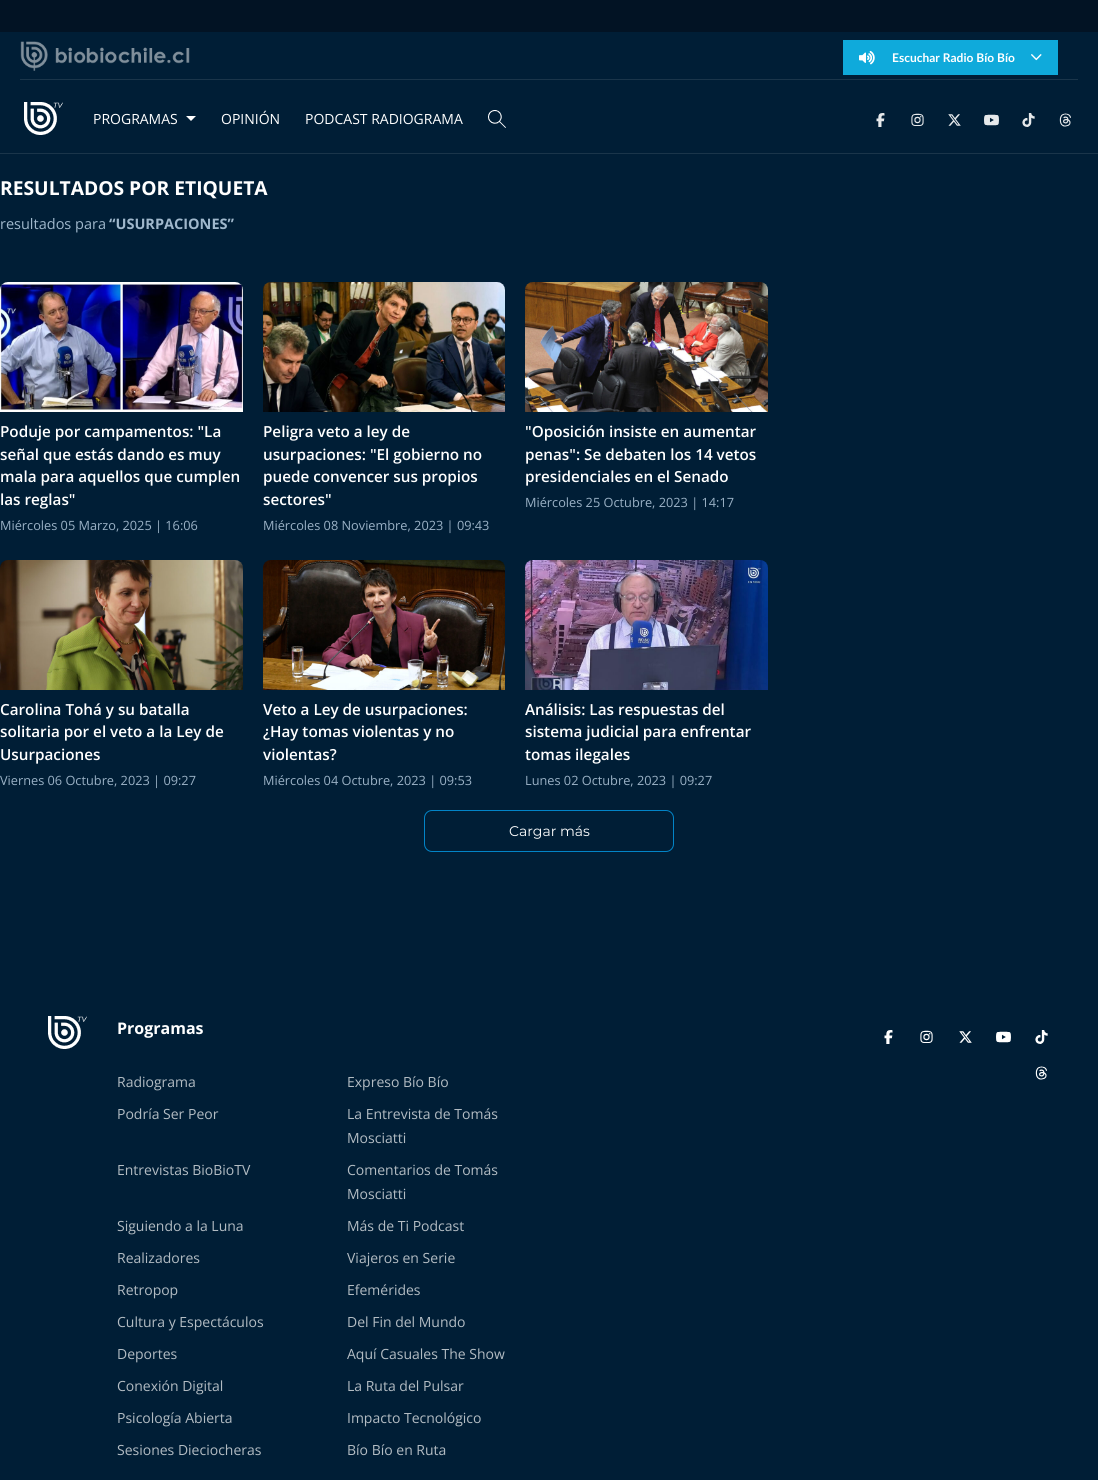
import math
import cairo

surface = cairo.ImageSurface(cairo.FORMAT_RGB24, 1098, 1480)
ctx = cairo.Context(surface)
options = cairo.FontOptions()
options.set_hint_metrics(cairo.HINT_METRICS_OFF)
options.set_hint_style(cairo.HINT_STYLE_NONE)
ctx.set_font_options(options)
ctx.set_miter_limit(4)


def round_rect(x, y, w, h, r):
    ctx.new_sub_path()
    for i, (u, v) in enumerate([(x + w - r, y + h - r), (x + r, y + h - r), (x + r, y + r), (x + w - r, y + r)]):
        ctx.arc(u, v, r, i * math.pi / 2, (i + 1) * math.pi / 2)
    ctx.close_path()


def picture(path, x, y, w, h):
    ctx.save()
    ctx.set_source_surface(cairo.ImageSurface.create_from_png(path), x, y)
    ctx.rectangle(x, y, w, h)
    ctx.fill()
    ctx.restore()


ctx.set_source_rgb(0, 0.118, 0.212)
ctx.paint()
ctx.set_source_rgb(0.008, 0.078, 0.141)
ctx.rectangle(0, 0, 1098, 32)
ctx.fill()
ctx.set_source_rgb(0.102, 0.208, 0.29)
ctx.rectangle(20, 79, 1058, 1)
ctx.fill()
picture("img1.png", 20, 41, 170, 30)
ctx.set_source_rgb(0.059, 0.667, 0.859)
ctx.rectangle(843, 40, 215, 35)
ctx.fill()
picture("img2.png", 859, 50, 16, 15)
ctx.select_font_face("Lato", cairo.FONT_SLANT_NORMAL, cairo.FONT_WEIGHT_BOLD)
ctx.set_font_size(12)
ctx.set_source_rgb(1, 1, 1)
ctx.move_to(892, 62)
ctx.show_text("Escuchar Radio Bío Bío")
picture("img3.png", 1031, 54, 11, 7)
ctx.set_source_rgb(0.102, 0.208, 0.29)
ctx.rectangle(0, 153, 1098, 1)
ctx.fill()
picture("img4.png", 24, 102, 39, 33)
ctx.select_font_face("Open Sans")
ctx.set_font_size(14)
ctx.set_source_rgb(1, 1, 1)
ctx.move_to(93, 124)
ctx.show_text("PROGRAMAS")
ctx.new_path()
ctx.move_to(186, 116)
ctx.line_to(196, 116)
ctx.line_to(191, 121)
ctx.close_path()
ctx.fill()
ctx.move_to(221, 124)
ctx.show_text("OPINIÓN")
ctx.move_to(305, 124)
ctx.show_text("PODCAST RADIOGRAMA")
picture("img5.png", 488, 110, 18, 18)
picture("img6.png", 876, 113, 9, 14)
picture("img7.png", 911, 113, 13, 13)
picture("img8.png", 948, 114, 13, 12)
picture("img9.png", 984, 114, 15, 12)
picture("img10.png", 1022, 113, 13, 14)
picture("img11.png", 1059, 113, 12, 14)
ctx.select_font_face("Open Sans", cairo.FONT_SLANT_NORMAL, cairo.FONT_WEIGHT_BOLD)
ctx.set_font_size(19.25)
ctx.move_to(0, 195)
ctx.show_text("RESULTADOS POR ETIQUETA")
ctx.select_font_face("Open Sans")
ctx.set_font_size(14.5)
ctx.set_source_rgb(0.627, 0.722, 0.8)
ctx.move_to(0, 229)
ctx.show_text("resultados para")
ctx.select_font_face("Open Sans", cairo.FONT_SLANT_NORMAL, cairo.FONT_WEIGHT_BOLD)
ctx.move_to(109, 229)
ctx.show_text("“USURPACIONES”")
picture("img12.png", 0, 282, 243, 130)
ctx.select_font_face("Open Sans SemiBold")
ctx.set_font_size(15.25)
ctx.set_source_rgb(1, 1, 1)
ctx.move_to(0, 437)
ctx.show_text("Poduje por campamentos: \"La")
ctx.move_to(0, 460)
ctx.show_text("señal que estás dando es muy")
ctx.move_to(0, 482)
ctx.show_text("mala para aquellos que cumplen")
ctx.move_to(0, 505)
ctx.show_text("las reglas\"")
ctx.select_font_face("Open Sans")
ctx.set_font_size(12.75)
ctx.set_source_rgb(0.604, 0.694, 0.773)
ctx.move_to(0, 530)
ctx.show_text("Miércoles 05 Marzo, 2025 | 16:06")
picture("img13.png", 263, 282, 242, 130)
ctx.select_font_face("Open Sans SemiBold")
ctx.set_font_size(15.25)
ctx.set_source_rgb(1, 1, 1)
ctx.move_to(263, 437)
ctx.show_text("Peligra veto a ley de")
ctx.move_to(263, 460)
ctx.show_text("usurpaciones: \"El gobierno no")
ctx.move_to(263, 482)
ctx.show_text("puede convencer sus propios")
ctx.move_to(263, 505)
ctx.show_text("sectores\"")
ctx.select_font_face("Open Sans")
ctx.set_font_size(12.75)
ctx.set_source_rgb(0.604, 0.694, 0.773)
ctx.move_to(263, 530)
ctx.show_text("Miércoles 08 Noviembre, 2023 | 09:43")
picture("img14.png", 525, 282, 243, 130)
ctx.select_font_face("Open Sans SemiBold")
ctx.set_font_size(15.25)
ctx.set_source_rgb(1, 1, 1)
ctx.move_to(525, 437)
ctx.show_text("\"Oposición insiste en aumentar")
ctx.move_to(525, 460)
ctx.show_text("penas\": Se debaten los 14 vetos")
ctx.move_to(525, 482)
ctx.show_text("presidenciales en el Senado")
ctx.select_font_face("Open Sans")
ctx.set_font_size(12.75)
ctx.set_source_rgb(0.604, 0.694, 0.773)
ctx.move_to(525, 507)
ctx.show_text("Miércoles 25 Octubre, 2023 | 14:17")
picture("img15.png", 0, 560, 243, 130)
ctx.select_font_face("Open Sans SemiBold")
ctx.set_font_size(15.25)
ctx.set_source_rgb(1, 1, 1)
ctx.move_to(0, 715)
ctx.show_text("Carolina Tohá y su batalla")
ctx.move_to(0, 737)
ctx.show_text("solitaria por el veto a la Ley de")
ctx.move_to(0, 760)
ctx.show_text("Usurpaciones")
ctx.select_font_face("Open Sans")
ctx.set_font_size(12.75)
ctx.set_source_rgb(0.604, 0.694, 0.773)
ctx.move_to(0, 785)
ctx.show_text("Viernes 06 Octubre, 2023 | 09:27")
picture("img16.png", 263, 560, 242, 130)
ctx.select_font_face("Open Sans SemiBold")
ctx.set_font_size(15.25)
ctx.set_source_rgb(1, 1, 1)
ctx.move_to(263, 715)
ctx.show_text("Veto a Ley de usurpaciones:")
ctx.move_to(263, 737)
ctx.show_text("¿Hay tomas violentas y no")
ctx.move_to(263, 760)
ctx.show_text("violentas?")
ctx.select_font_face("Open Sans")
ctx.set_font_size(12.75)
ctx.set_source_rgb(0.604, 0.694, 0.773)
ctx.move_to(263, 785)
ctx.show_text("Miércoles 04 Octubre, 2023 | 09:53")
picture("img17.png", 525, 560, 243, 130)
ctx.select_font_face("Open Sans SemiBold")
ctx.set_font_size(15.25)
ctx.set_source_rgb(1, 1, 1)
ctx.move_to(525, 715)
ctx.show_text("Análisis: Las respuestas del")
ctx.move_to(525, 737)
ctx.show_text("sistema judicial para enfrentar")
ctx.move_to(525, 760)
ctx.show_text("tomas ilegales")
ctx.select_font_face("Open Sans")
ctx.set_font_size(12.75)
ctx.set_source_rgb(0.604, 0.694, 0.773)
ctx.move_to(525, 785)
ctx.show_text("Lunes 02 Octubre, 2023 | 09:27")
round_rect(424.5, 810.5, 249, 41, 7.5)
ctx.set_source_rgb(0.008, 0.518, 0.78)
ctx.set_line_width(1)
ctx.stroke()
ctx.select_font_face("Montserrat")
ctx.set_font_size(14)
ctx.set_source_rgb(1, 1, 1)
ctx.move_to(509, 836)
ctx.show_text("Cargar más")
picture("img4.png", 48, 1016, 39, 33)
ctx.select_font_face("Open Sans", cairo.FONT_SLANT_NORMAL, cairo.FONT_WEIGHT_BOLD)
ctx.set_font_size(16)
ctx.move_to(117, 1034)
ctx.show_text("Programas")
ctx.select_font_face("Open Sans")
ctx.set_font_size(14)
ctx.set_source_rgb(0.702, 0.737, 0.765)
ctx.move_to(117, 1087)
ctx.show_text("Radiograma")
ctx.move_to(347, 1087)
ctx.show_text("Expreso Bío Bío")
ctx.move_to(117, 1119)
ctx.show_text("Podría Ser Peor")
ctx.move_to(347, 1119)
ctx.show_text("La Entrevista de Tomás")
ctx.move_to(347, 1143)
ctx.show_text("Mosciatti")
ctx.move_to(117, 1175)
ctx.show_text("Entrevistas BioBioTV")
ctx.move_to(347, 1175)
ctx.show_text("Comentarios de Tomás")
ctx.move_to(347, 1199)
ctx.show_text("Mosciatti")
ctx.move_to(117, 1231)
ctx.show_text("Siguiendo a la Luna")
ctx.move_to(347, 1231)
ctx.show_text("Más de Ti Podcast")
ctx.move_to(117, 1263)
ctx.show_text("Realizadores")
ctx.move_to(347, 1263)
ctx.show_text("Viajeros en Serie")
ctx.move_to(117, 1295)
ctx.show_text("Retropop")
ctx.move_to(347, 1295)
ctx.show_text("Efemérides")
ctx.move_to(117, 1327)
ctx.show_text("Cultura y Espectáculos")
ctx.move_to(347, 1327)
ctx.show_text("Del Fin del Mundo")
ctx.move_to(117, 1359)
ctx.show_text("Deportes")
ctx.move_to(347, 1359)
ctx.show_text("Aquí Casuales The Show")
ctx.move_to(117, 1391)
ctx.show_text("Conexión Digital")
ctx.move_to(347, 1391)
ctx.show_text("La Ruta del Pulsar")
ctx.move_to(117, 1423)
ctx.show_text("Psicología Abierta")
ctx.move_to(347, 1423)
ctx.show_text("Impacto Tecnológico")
ctx.move_to(117, 1455)
ctx.show_text("Sesiones Dieciocheras")
ctx.move_to(347, 1455)
ctx.show_text("Bío Bío en Ruta")
picture("img18.png", 884, 1030, 9, 14)
picture("img19.png", 920, 1030, 13, 13)
picture("img20.png", 959, 1031, 13, 12)
picture("img21.png", 996, 1031, 15, 12)
picture("img22.png", 1035, 1030, 13, 14)
picture("img23.png", 1035, 1066, 12, 14)
surface.write_to_png("page.png")
